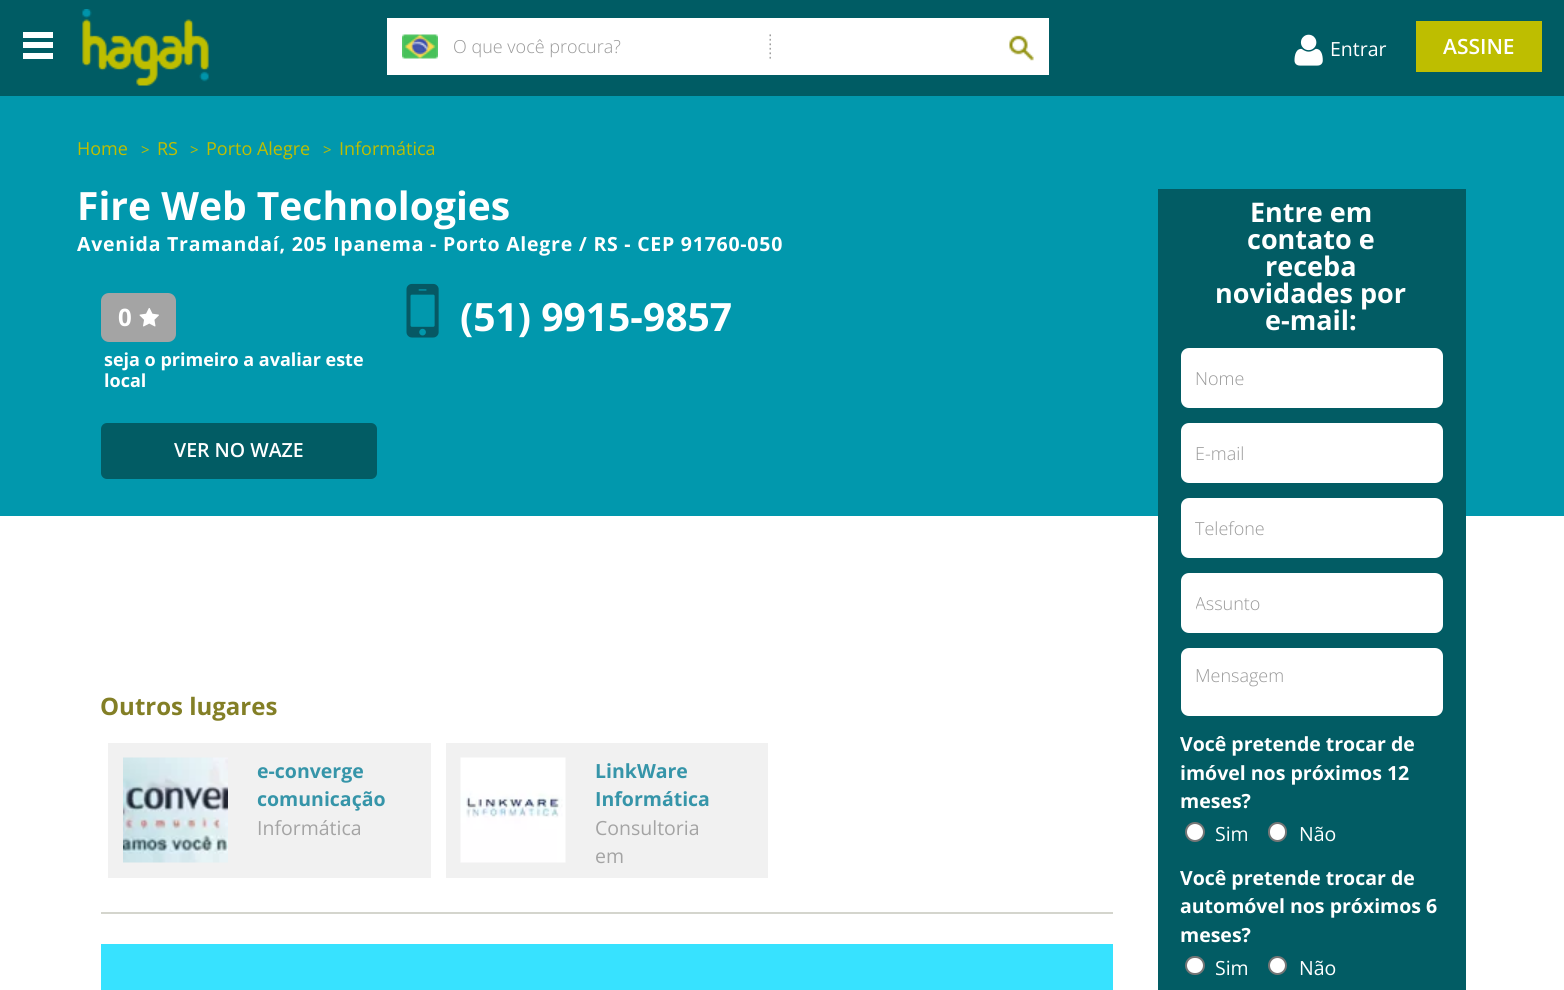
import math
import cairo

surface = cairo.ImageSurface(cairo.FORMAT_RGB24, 1564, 990)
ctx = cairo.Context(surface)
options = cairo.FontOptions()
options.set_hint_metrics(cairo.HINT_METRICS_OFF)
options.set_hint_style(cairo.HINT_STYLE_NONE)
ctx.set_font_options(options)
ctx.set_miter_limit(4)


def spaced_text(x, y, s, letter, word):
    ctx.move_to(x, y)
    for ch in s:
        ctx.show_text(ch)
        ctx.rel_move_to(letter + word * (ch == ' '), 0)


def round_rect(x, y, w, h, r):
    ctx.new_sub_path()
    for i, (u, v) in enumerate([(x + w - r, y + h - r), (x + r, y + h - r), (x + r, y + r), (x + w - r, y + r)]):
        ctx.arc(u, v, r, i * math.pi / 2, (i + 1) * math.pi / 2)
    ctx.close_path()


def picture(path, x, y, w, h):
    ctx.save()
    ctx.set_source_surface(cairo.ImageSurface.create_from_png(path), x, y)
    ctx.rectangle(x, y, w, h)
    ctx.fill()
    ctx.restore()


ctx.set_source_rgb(1, 1, 1)
ctx.paint()
ctx.set_source_rgb(0, 0.361, 0.392)
ctx.rectangle(0, 0, 1564, 96)
ctx.fill()
ctx.set_source_rgb(1, 1, 1)
ctx.rectangle(387, 18, 662, 57)
ctx.fill()
picture("img1.png", 402, 34, 36, 25)
ctx.select_font_face("Open Sans Light")
ctx.set_font_size(18)
ctx.set_source_rgb(0.6, 0.6, 0.6)
ctx.move_to(453, 53)
ctx.show_text("O que você procura?")
picture("img2.png", 769, 34, 2, 25)
picture("img3.png", 1009, 35, 25, 26)
ctx.set_source_rgb(1, 1, 1)
ctx.rectangle(23, 42, 30, 6)
ctx.fill()
ctx.rectangle(23, 32, 30, 6)
ctx.fill()
ctx.rectangle(23, 53, 30, 6)
ctx.fill()
picture("img4.png", 82, 9, 127, 77)
picture("img5.png", 1294, 34, 29, 32)
ctx.select_font_face("Open Sans")
ctx.set_font_size(19.5)
ctx.move_to(1330, 56)
ctx.show_text("Entrar")
ctx.set_source_rgb(0.745, 0.745, 0)
ctx.rectangle(1416, 21, 126, 51)
ctx.fill()
ctx.select_font_face("Open Sans SemiBold")
ctx.set_font_size(21)
ctx.set_source_rgb(1, 1, 1)
ctx.move_to(1443, 54)
ctx.show_text("ASSINE")
ctx.set_source_rgb(0.004, 0.596, 0.678)
ctx.rectangle(0, 96, 1564, 420)
ctx.fill()
ctx.select_font_face("Open Sans")
ctx.set_font_size(18)
ctx.set_source_rgb(0.749, 0.745, 0.004)
ctx.move_to(77, 155)
ctx.show_text("Home")
ctx.set_font_size(15)
ctx.move_to(141, 155)
ctx.show_text(">")
ctx.set_font_size(18)
ctx.move_to(157, 155)
ctx.show_text("RS")
ctx.set_font_size(15)
ctx.move_to(190, 155)
ctx.show_text(">")
ctx.set_font_size(18)
ctx.move_to(206, 155)
ctx.show_text("Porto Alegre")
ctx.set_font_size(15)
ctx.move_to(323, 155)
ctx.show_text(">")
ctx.set_font_size(18)
ctx.move_to(339, 155)
ctx.show_text("Informática")
ctx.select_font_face("Open Sans", cairo.FONT_SLANT_NORMAL, cairo.FONT_WEIGHT_BOLD)
ctx.set_font_size(39)
ctx.set_source_rgb(1, 1, 1)
ctx.move_to(77, 220)
ctx.show_text("Fire Web Technologies")
ctx.set_font_size(19.5)
spaced_text(77, 251, "Avenida Tramandaí, 205 Ipanema - Porto Alegre / RS - CEP 91760-050", 0.75, 0)
ctx.set_source_rgb(0.643, 0.643, 0.643)
round_rect(101, 293, 75, 49, 8)
ctx.fill()
ctx.set_font_size(24)
ctx.set_source_rgb(1, 1, 1)
ctx.move_to(118, 326)
ctx.show_text("0")
picture("img6.png", 139, 308, 20, 19)
ctx.set_font_size(18)
ctx.move_to(104, 366)
ctx.show_text("seja o primeiro a avaliar este")
ctx.move_to(104, 387)
ctx.show_text("local")
picture("img7.png", 406, 283, 33, 55)
ctx.set_font_size(39)
ctx.move_to(460, 331)
ctx.show_text("(51) 9915-9857")
ctx.set_source_rgb(0.008, 0.361, 0.392)
round_rect(101, 423, 276, 56, 6)
ctx.fill()
ctx.select_font_face("Open Sans SemiBold")
ctx.set_font_size(19.5)
ctx.set_source_rgb(1, 1, 1)
ctx.move_to(174, 457)
ctx.show_text("VER NO WAZE")
ctx.select_font_face("Open Sans", cairo.FONT_SLANT_NORMAL, cairo.FONT_WEIGHT_BOLD)
ctx.set_font_size(24)
ctx.set_source_rgb(0.514, 0.498, 0.149)
ctx.move_to(100, 715)
ctx.show_text("Outros lugares")
ctx.set_source_rgb(0.945, 0.945, 0.945)
ctx.rectangle(108, 743, 323, 135)
ctx.fill()
picture("img8.png", 123, 757, 105, 106)
ctx.set_font_size(19.5)
ctx.set_source_rgb(0.212, 0.584, 0.663)
ctx.move_to(257, 778)
ctx.show_text("e-converge")
ctx.move_to(257, 806)
ctx.show_text("comunicação")
ctx.select_font_face("Open Sans")
ctx.set_source_rgb(0.643, 0.643, 0.643)
ctx.move_to(257, 835)
ctx.show_text("Informática")
ctx.set_source_rgb(0.945, 0.945, 0.945)
ctx.rectangle(446, 743, 322, 135)
ctx.fill()
picture("img9.png", 460, 757, 106, 106)
ctx.select_font_face("Open Sans", cairo.FONT_SLANT_NORMAL, cairo.FONT_WEIGHT_BOLD)
ctx.set_source_rgb(0.212, 0.584, 0.663)
ctx.move_to(595, 778)
ctx.show_text("LinkWare")
ctx.move_to(595, 806)
ctx.show_text("Informática")
ctx.select_font_face("Open Sans")
ctx.set_source_rgb(0.643, 0.643, 0.643)
ctx.move_to(595, 835)
ctx.show_text("Consultoria")
ctx.move_to(595, 863)
ctx.show_text("em")
ctx.set_source_rgb(0.831, 0.835, 0.804)
ctx.rectangle(101, 912, 1012, 2)
ctx.fill()
ctx.set_source_rgb(0.216, 0.886, 1)
ctx.rectangle(101, 944, 1012, 46)
ctx.fill()
ctx.set_source_rgb(0.008, 0.361, 0.392)
ctx.rectangle(1158, 189, 308, 801)
ctx.fill()
ctx.select_font_face("Open Sans", cairo.FONT_SLANT_NORMAL, cairo.FONT_WEIGHT_BOLD)
ctx.set_font_size(27)
ctx.set_source_rgb(1, 1, 1)
ctx.move_to(1250, 222)
ctx.show_text("Entre em")
ctx.move_to(1247, 249)
ctx.show_text("contato e")
ctx.move_to(1265, 276)
ctx.show_text("receba")
ctx.move_to(1215, 303)
ctx.show_text("novidades por")
ctx.move_to(1265, 330)
ctx.show_text("e-mail:")
round_rect(1181, 348, 262, 60, 8)
ctx.fill()
ctx.select_font_face("Open Sans Light")
ctx.set_font_size(18)
ctx.set_source_rgb(0.6, 0.6, 0.6)
ctx.move_to(1195, 385)
ctx.show_text("Nome")
ctx.set_source_rgb(1, 1, 1)
round_rect(1181, 423, 262, 60, 8)
ctx.fill()
ctx.set_source_rgb(0.6, 0.6, 0.6)
ctx.move_to(1195, 460)
ctx.show_text("E-mail")
ctx.set_source_rgb(1, 1, 1)
round_rect(1181, 498, 262, 60, 8)
ctx.fill()
ctx.set_source_rgb(0.6, 0.6, 0.6)
ctx.move_to(1195, 535)
ctx.show_text("Telefone")
ctx.set_source_rgb(1, 1, 1)
round_rect(1181, 573, 262, 60, 8)
ctx.fill()
ctx.save()
ctx.rectangle(1196, 590, 232, 25)
ctx.clip()
ctx.set_source_rgb(0.6, 0.6, 0.6)
ctx.move_to(1195, 610)
ctx.show_text("Assunto")
ctx.restore()
round_rect(1181, 648, 262, 68, 8)
ctx.fill()
ctx.set_source_rgb(0.6, 0.6, 0.6)
ctx.move_to(1195, 682)
ctx.show_text("Mensagem")
ctx.select_font_face("Open Sans", cairo.FONT_SLANT_NORMAL, cairo.FONT_WEIGHT_BOLD)
ctx.set_font_size(19.5)
ctx.set_source_rgb(1, 1, 1)
ctx.move_to(1180, 751)
ctx.show_text("Você pretende trocar de")
ctx.move_to(1180, 780)
ctx.show_text("imóvel nos próximos 12")
ctx.move_to(1180, 808)
ctx.show_text("meses?")
ctx.new_path()
ctx.arc(1195, 832, 9, 0, 2 * math.pi)
ctx.fill_preserve()
ctx.set_source_rgb(0.463, 0.463, 0.463)
ctx.stroke()
ctx.select_font_face("Open Sans")
ctx.set_source_rgb(1, 1, 1)
ctx.move_to(1215, 841)
ctx.show_text("Sim")
round_rect(1269, 823, 17, 18, 8.5)
ctx.fill_preserve()
ctx.set_source_rgb(0.463, 0.463, 0.463)
ctx.stroke()
ctx.set_source_rgb(1, 1, 1)
ctx.move_to(1299, 841)
ctx.show_text("Não")
ctx.select_font_face("Open Sans", cairo.FONT_SLANT_NORMAL, cairo.FONT_WEIGHT_BOLD)
ctx.move_to(1180, 885)
ctx.show_text("Você pretende trocar de")
ctx.move_to(1180, 913)
ctx.show_text("automóvel nos próximos 6")
ctx.move_to(1180, 942)
ctx.show_text("meses?")
round_rect(1186, 957, 18, 17, 8.5)
ctx.fill_preserve()
ctx.set_source_rgb(0.463, 0.463, 0.463)
ctx.stroke()
ctx.select_font_face("Open Sans")
ctx.set_source_rgb(1, 1, 1)
ctx.move_to(1215, 975)
ctx.show_text("Sim")
ctx.new_path()
ctx.arc(1277.5, 965.5, 8.5, 0, 2 * math.pi)
ctx.fill_preserve()
ctx.set_source_rgb(0.463, 0.463, 0.463)
ctx.stroke()
ctx.set_source_rgb(1, 1, 1)
ctx.move_to(1299, 975)
ctx.show_text("Não")
surface.write_to_png("page.png")
